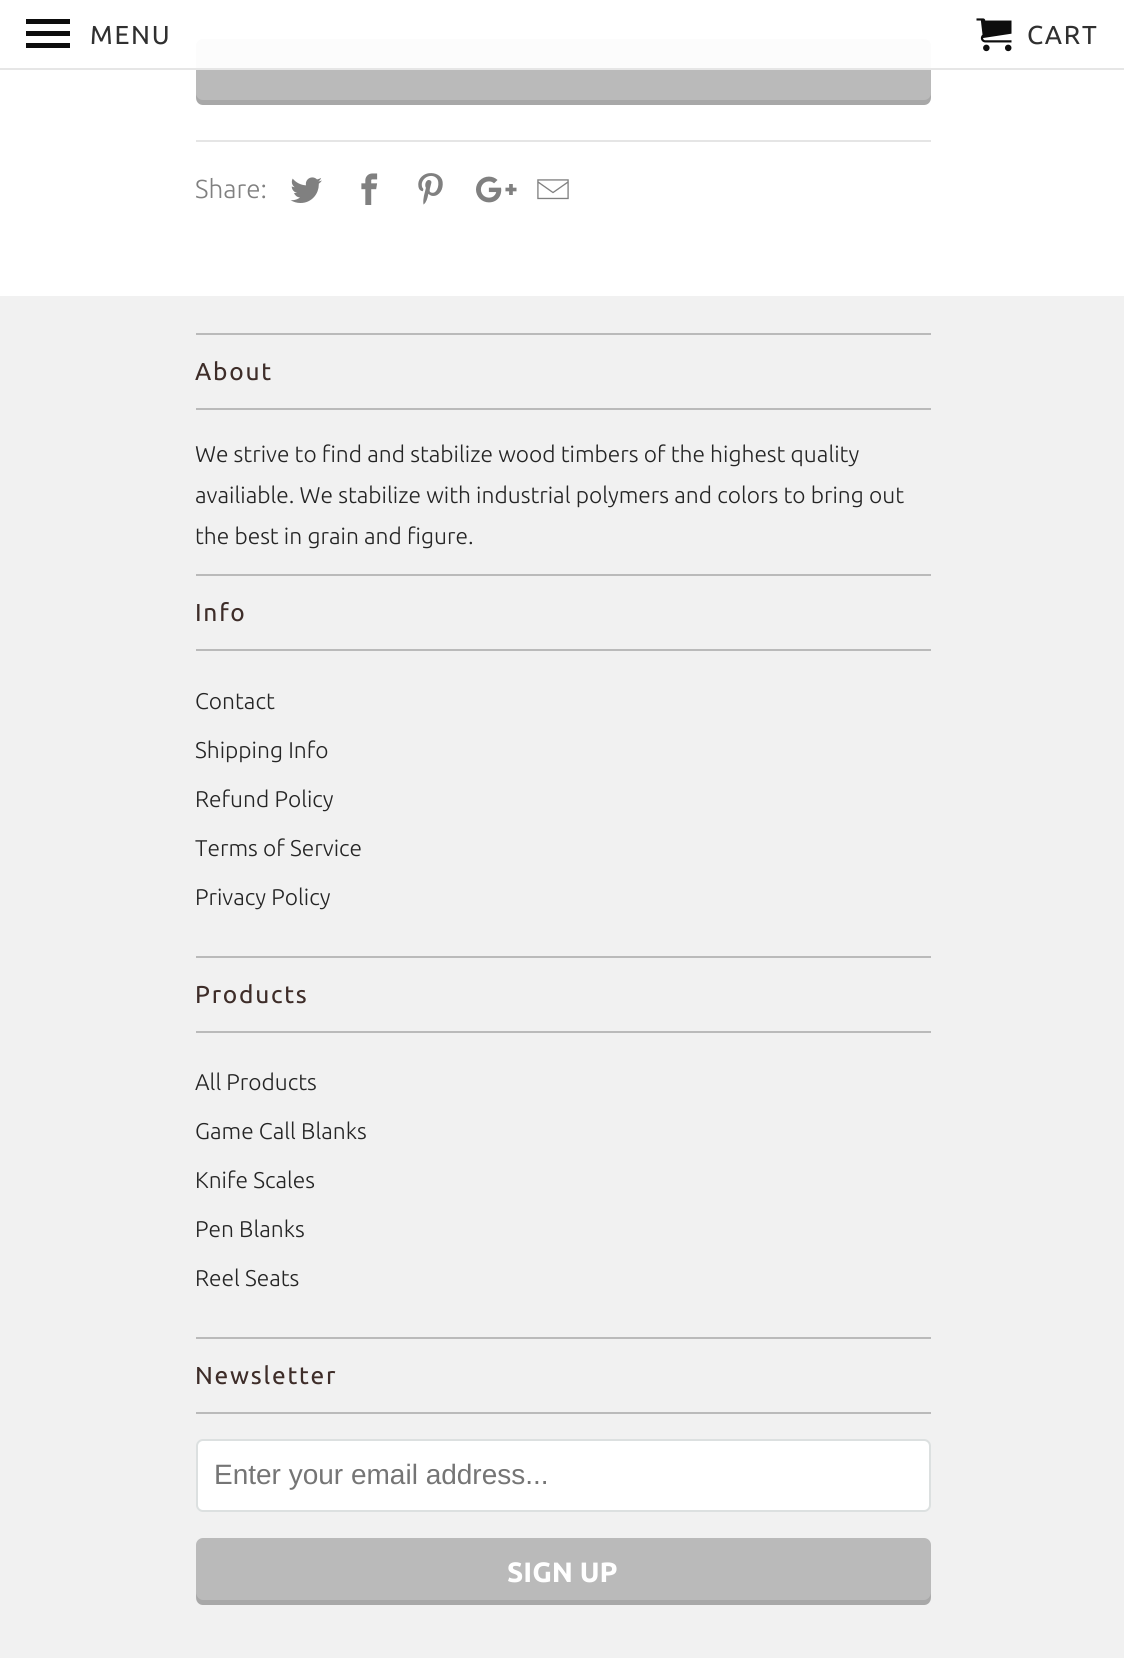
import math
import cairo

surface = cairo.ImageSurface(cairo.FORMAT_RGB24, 1124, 1658)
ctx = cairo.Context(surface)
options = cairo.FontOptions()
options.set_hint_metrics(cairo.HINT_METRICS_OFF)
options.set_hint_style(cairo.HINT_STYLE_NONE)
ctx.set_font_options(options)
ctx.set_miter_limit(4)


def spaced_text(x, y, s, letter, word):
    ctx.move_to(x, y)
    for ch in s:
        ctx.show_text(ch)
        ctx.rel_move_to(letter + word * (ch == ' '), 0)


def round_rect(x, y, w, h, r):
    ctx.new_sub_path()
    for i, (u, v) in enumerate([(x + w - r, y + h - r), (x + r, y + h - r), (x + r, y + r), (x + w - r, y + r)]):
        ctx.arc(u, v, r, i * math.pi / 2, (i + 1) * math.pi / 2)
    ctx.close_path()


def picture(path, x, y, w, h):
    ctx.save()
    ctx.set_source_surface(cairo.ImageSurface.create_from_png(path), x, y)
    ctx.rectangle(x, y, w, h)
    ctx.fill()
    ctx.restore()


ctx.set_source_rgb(1, 1, 1)
ctx.paint()
ctx.set_source_rgb(0.729, 0.729, 0.729)
round_rect(196, 39, 735, 66, 7)
ctx.fill()
ctx.set_source_rgba(1, 1, 1, 0.95)
ctx.rectangle(196, 39, 735, 31)
ctx.fill()
ctx.set_source_rgba(0.898, 0.898, 0.898, 0.95)
ctx.rectangle(0, 68, 1124, 2)
ctx.fill()
ctx.set_source_rgb(0.051, 0.051, 0.051)
ctx.new_path()
ctx.move_to(26, 48)
ctx.line_to(70, 48)
ctx.line_to(70, 43)
ctx.line_to(26, 43)
ctx.close_path()
ctx.move_to(26, 36)
ctx.line_to(70, 36)
ctx.line_to(70, 31)
ctx.line_to(26, 31)
ctx.close_path()
ctx.move_to(26, 19)
ctx.line_to(26, 24)
ctx.line_to(70, 24)
ctx.line_to(70, 19)
ctx.close_path()
ctx.fill()
ctx.select_font_face("Ubuntu")
ctx.set_font_size(26)
ctx.set_source_rgb(0.188, 0.188, 0.188)
spaced_text(90, 44, "MENU", 1.75, 0)
picture("img1.png", 976, 18, 36, 34)
spaced_text(1027, 44, "CART", 1.75, 0)
ctx.set_source_rgba(0, 0, 0, 0.1)
ctx.new_path()
ctx.move_to(196, 93)
ctx.curve_to(196, 98, 196, 105, 203, 105)
ctx.line_to(924, 105)
ctx.curve_to(931, 105, 931, 98, 931, 93)
ctx.curve_to(931, 97, 928, 100, 924, 100)
ctx.line_to(203, 100)
ctx.curve_to(199, 100, 196, 97, 196, 93)
ctx.close_path()
ctx.fill()
ctx.set_source_rgb(0.898, 0.898, 0.898)
ctx.rectangle(196, 140, 735, 2)
ctx.fill()
ctx.select_font_face("Ubuntu Light")
ctx.set_source_rgb(0.502, 0.502, 0.502)
ctx.move_to(195, 198)
ctx.show_text("Share:")
picture("img2.png", 290, 177, 32, 26)
picture("img3.png", 361, 173, 17, 32)
picture("img4.png", 418, 173, 25, 32)
picture("img5.png", 476, 176, 41, 27)
picture("img6.png", 537, 179, 32, 21)
ctx.set_source_rgb(0.945, 0.945, 0.945)
ctx.rectangle(0, 296, 1124, 1362)
ctx.fill()
ctx.set_source_rgb(0.729, 0.729, 0.729)
ctx.rectangle(196, 333, 735, 2)
ctx.fill()
ctx.rectangle(196, 408, 735, 2)
ctx.fill()
ctx.select_font_face("Ubuntu")
ctx.set_font_size(24.5)
ctx.set_source_rgb(0.243, 0.176, 0.161)
spaced_text(195, 380, "About", 1.75, 0)
ctx.select_font_face("Ubuntu Light")
ctx.set_font_size(22.75)
ctx.set_source_rgb(0.145, 0.145, 0.145)
ctx.move_to(195, 462)
ctx.show_text("We strive to find and stabilize wood timbers of the highest quality")
ctx.move_to(195, 503)
ctx.show_text("availiable. We stabilize with industrial polymers and colors to bring out")
ctx.move_to(195, 544)
ctx.show_text("the best in grain and figure.")
ctx.set_source_rgb(0.729, 0.729, 0.729)
ctx.rectangle(196, 574, 735, 2)
ctx.fill()
ctx.rectangle(196, 649, 735, 2)
ctx.fill()
ctx.select_font_face("Ubuntu")
ctx.set_font_size(24.5)
ctx.set_source_rgb(0.243, 0.176, 0.161)
spaced_text(195, 621, "Info", 1.75, 0)
ctx.select_font_face("Ubuntu Light")
ctx.set_font_size(22.75)
ctx.set_source_rgb(0.145, 0.145, 0.145)
ctx.move_to(195, 709)
ctx.show_text("Contact")
ctx.move_to(195, 758)
ctx.show_text("Shipping Info")
ctx.move_to(195, 807)
ctx.show_text("Refund Policy")
ctx.move_to(195, 856)
ctx.show_text("Terms of Service")
ctx.move_to(195, 905)
ctx.show_text("Privacy Policy")
ctx.set_source_rgb(0.729, 0.729, 0.729)
ctx.rectangle(196, 956, 735, 2)
ctx.fill()
ctx.rectangle(196, 1031, 735, 2)
ctx.fill()
ctx.select_font_face("Ubuntu")
ctx.set_font_size(24.5)
ctx.set_source_rgb(0.243, 0.176, 0.161)
spaced_text(195, 1003, "Products", 1.75, 0)
ctx.select_font_face("Ubuntu Light")
ctx.set_font_size(22.75)
ctx.set_source_rgb(0.145, 0.145, 0.145)
ctx.move_to(195, 1090)
ctx.show_text("All Products")
ctx.move_to(195, 1139)
ctx.show_text("Game Call Blanks")
ctx.move_to(195, 1188)
ctx.show_text("Knife Scales")
ctx.move_to(195, 1237)
ctx.show_text("Pen Blanks")
ctx.move_to(195, 1286)
ctx.show_text("Reel Seats")
ctx.set_source_rgb(0.729, 0.729, 0.729)
ctx.rectangle(196, 1337, 735, 2)
ctx.fill()
ctx.rectangle(196, 1412, 735, 2)
ctx.fill()
ctx.select_font_face("Ubuntu")
ctx.set_font_size(24.5)
ctx.set_source_rgb(0.243, 0.176, 0.161)
spaced_text(195, 1384, "Newsletter", 1.75, 0)
ctx.set_source_rgb(1, 1, 1)
round_rect(197, 1440, 733, 71, 6)
ctx.fill_preserve()
ctx.set_source_rgb(0.863, 0.878, 0.878)
ctx.stroke()
ctx.select_font_face("Liberation Sans")
ctx.set_font_size(28)
ctx.set_source_rgb(0.459, 0.459, 0.459)
ctx.move_to(214, 1484)
ctx.show_text("Enter your email address...")
ctx.set_source_rgb(0.729, 0.729, 0.729)
round_rect(196, 1538, 735, 67, 7)
ctx.fill()
ctx.set_source_rgba(0, 0, 0, 0.1)
ctx.new_path()
ctx.move_to(196, 1592)
ctx.curve_to(196, 1597, 196, 1605, 203, 1605)
ctx.line_to(924, 1605)
ctx.curve_to(931, 1605, 931, 1597, 931, 1592)
ctx.curve_to(931, 1596, 928, 1600, 924, 1600)
ctx.line_to(203, 1600)
ctx.curve_to(199, 1600, 196, 1596, 196, 1592)
ctx.close_path()
ctx.fill()
ctx.select_font_face("Ubuntu", cairo.FONT_SLANT_NORMAL, cairo.FONT_WEIGHT_BOLD)
ctx.set_source_rgb(1, 1, 1)
ctx.move_to(507, 1582)
ctx.show_text("SIGN UP")
surface.write_to_png("page.png")
